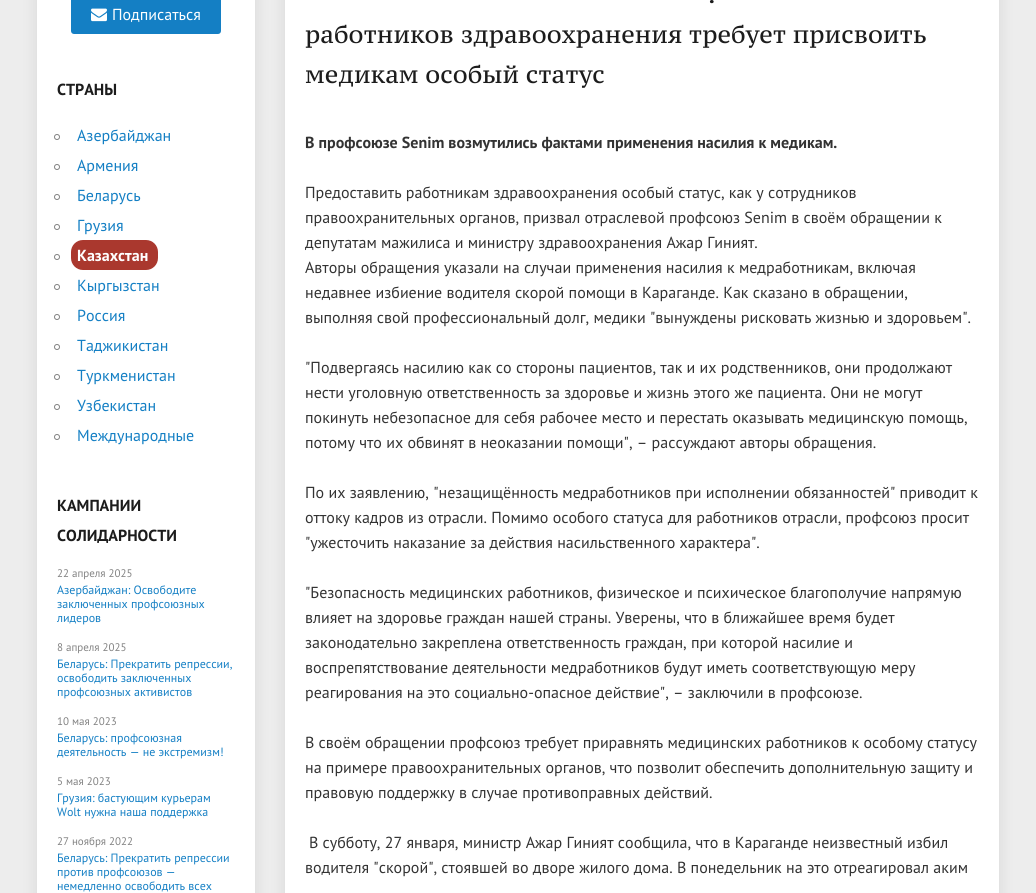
import math
import cairo

surface = cairo.ImageSurface(cairo.FORMAT_RGB24, 1036, 893)
ctx = cairo.Context(surface)
options = cairo.FontOptions()
options.set_hint_metrics(cairo.HINT_METRICS_OFF)
options.set_hint_style(cairo.HINT_STYLE_NONE)
ctx.set_font_options(options)
ctx.set_miter_limit(4)


def round_rect(x, y, w, h, r):
    ctx.new_sub_path()
    for i, (u, v) in enumerate([(x + w - r, y + h - r), (x + r, y + h - r), (x + r, y + r), (x + w - r, y + r)]):
        ctx.arc(u, v, r, i * math.pi / 2, (i + 1) * math.pi / 2)
    ctx.close_path()


def shadow(x, y, w, h, r, blur, alpha):
    ctx.push_group_with_content(cairo.CONTENT_ALPHA)
    ctx.set_operator(cairo.OPERATOR_SOURCE)
    for i in range(15, -16, -2):
        e = blur * i / 6
        if min(w, h) + 2 * e > 0:
            ctx.set_source_rgba(0, 0, 0, alpha * math.erfc((i - 1) / 8.5) / 2)
            round_rect(x - e, y - e, w + 2 * e, h + 2 * e, max(0, min(r + e + blur * .6, min(w, h) / 2 + e)))
            ctx.fill()
    ctx.mask(ctx.pop_group())


def picture(path, x, y, w, h):
    ctx.save()
    ctx.set_source_surface(cairo.ImageSurface.create_from_png(path), x, y)
    ctx.rectangle(x, y, w, h)
    ctx.fill()
    ctx.restore()


ctx.set_source_rgb(0.929, 0.929, 0.929)
ctx.paint()
ctx.set_source_rgb(0, 0, 0)
shadow(37, -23, 218, 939, 0, 7.5, 0.1)
ctx.set_source_rgb(1, 1, 1)
ctx.rectangle(37, 0, 218, 893)
ctx.fill()
ctx.set_source_rgb(0.082, 0.498, 0.769)
round_rect(71, -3, 150, 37, 3)
ctx.fill()
picture("img1.png", 91, 8, 16, 14)
ctx.select_font_face("PT Sans")
ctx.set_font_size(16)
ctx.set_source_rgb(1, 1, 1)
ctx.move_to(112, 20)
ctx.show_text("Подписаться")
ctx.select_font_face("PT Sans", cairo.FONT_SLANT_NORMAL, cairo.FONT_WEIGHT_BOLD)
ctx.set_source_rgb(0.11, 0.11, 0.11)
ctx.move_to(57, 95)
ctx.show_text("СТРАНЫ")
ctx.new_path()
ctx.arc(57, 137, 2.5, 0, 2 * math.pi)
ctx.set_source_rgb(0.51, 0.51, 0.51)
ctx.set_line_width(1)
ctx.stroke()
ctx.select_font_face("PT Sans")
ctx.set_source_rgb(0.082, 0.498, 0.769)
ctx.move_to(77, 141)
ctx.show_text("Азербайджан")
ctx.new_path()
ctx.arc(57, 167, 2.5, 0, 2 * math.pi)
ctx.set_source_rgb(0.51, 0.51, 0.51)
ctx.stroke()
ctx.set_source_rgb(0.082, 0.498, 0.769)
ctx.move_to(77, 171)
ctx.show_text("Армения")
ctx.new_path()
ctx.arc(57, 197, 2.5, 0, 2 * math.pi)
ctx.set_source_rgb(0.51, 0.51, 0.51)
ctx.stroke()
ctx.set_source_rgb(0.082, 0.498, 0.769)
ctx.move_to(77, 201)
ctx.show_text("Беларусь")
ctx.new_path()
ctx.arc(57, 227, 2.5, 0, 2 * math.pi)
ctx.set_source_rgb(0.51, 0.51, 0.51)
ctx.stroke()
ctx.set_source_rgb(0.082, 0.498, 0.769)
ctx.move_to(77, 231)
ctx.show_text("Грузия")
ctx.new_path()
ctx.arc(57, 257, 2.5, 0, 2 * math.pi)
ctx.set_source_rgb(0.51, 0.51, 0.51)
ctx.stroke()
ctx.set_source_rgb(0.667, 0.22, 0.18)
round_rect(71, 240, 87, 30, 12)
ctx.fill()
ctx.select_font_face("PT Sans", cairo.FONT_SLANT_NORMAL, cairo.FONT_WEIGHT_BOLD)
ctx.set_source_rgb(1, 1, 1)
ctx.move_to(77, 261)
ctx.show_text("Казахстан")
ctx.new_path()
ctx.arc(57, 287, 2.5, 0, 2 * math.pi)
ctx.set_source_rgb(0.51, 0.51, 0.51)
ctx.stroke()
ctx.select_font_face("PT Sans")
ctx.set_source_rgb(0.082, 0.498, 0.769)
ctx.move_to(77, 291)
ctx.show_text("Кыргызстан")
ctx.new_path()
ctx.arc(57, 317, 2.5, 0, 2 * math.pi)
ctx.set_source_rgb(0.51, 0.51, 0.51)
ctx.stroke()
ctx.set_source_rgb(0.082, 0.498, 0.769)
ctx.move_to(77, 321)
ctx.show_text("Россия")
ctx.new_path()
ctx.arc(57, 347, 2.5, 0, 2 * math.pi)
ctx.set_source_rgb(0.51, 0.51, 0.51)
ctx.stroke()
ctx.set_source_rgb(0.082, 0.498, 0.769)
ctx.move_to(77, 351)
ctx.show_text("Таджикистан")
ctx.new_path()
ctx.arc(57, 377, 2.5, 0, 2 * math.pi)
ctx.set_source_rgb(0.51, 0.51, 0.51)
ctx.stroke()
ctx.set_source_rgb(0.082, 0.498, 0.769)
ctx.move_to(77, 381)
ctx.show_text("Туркменистан")
ctx.new_path()
ctx.arc(57, 407, 2.5, 0, 2 * math.pi)
ctx.set_source_rgb(0.51, 0.51, 0.51)
ctx.stroke()
ctx.set_source_rgb(0.082, 0.498, 0.769)
ctx.move_to(77, 411)
ctx.show_text("Узбекистан")
ctx.new_path()
ctx.arc(57, 437, 2.5, 0, 2 * math.pi)
ctx.set_source_rgb(0.51, 0.51, 0.51)
ctx.stroke()
ctx.set_source_rgb(0.082, 0.498, 0.769)
ctx.move_to(77, 441)
ctx.show_text("Международные")
ctx.select_font_face("PT Sans", cairo.FONT_SLANT_NORMAL, cairo.FONT_WEIGHT_BOLD)
ctx.set_source_rgb(0.11, 0.11, 0.11)
ctx.move_to(57, 511)
ctx.show_text("КАМПАНИИ")
ctx.move_to(57, 541)
ctx.show_text("СОЛИДАРНОСТИ")
ctx.select_font_face("PT Sans")
ctx.set_font_size(11)
ctx.set_source_rgb(0.51, 0.51, 0.51)
ctx.move_to(57, 577)
ctx.show_text("22 апреля 2025")
ctx.set_font_size(12)
ctx.set_source_rgb(0.082, 0.498, 0.769)
ctx.move_to(57, 594)
ctx.show_text("Азербайджан: Освободите")
ctx.move_to(57, 608)
ctx.show_text("заключенных профсоюзных")
ctx.move_to(57, 622)
ctx.show_text("лидеров")
ctx.set_font_size(11)
ctx.set_source_rgb(0.51, 0.51, 0.51)
ctx.move_to(57, 651)
ctx.show_text("8 апреля 2025")
ctx.set_font_size(12)
ctx.set_source_rgb(0.082, 0.498, 0.769)
ctx.move_to(57, 668)
ctx.show_text("Беларусь: Прекратить репрессии,")
ctx.move_to(57, 682)
ctx.show_text("освободить заключенных")
ctx.move_to(57, 696)
ctx.show_text("профсоюзных активистов")
ctx.set_font_size(11)
ctx.set_source_rgb(0.51, 0.51, 0.51)
ctx.move_to(57, 725)
ctx.show_text("10 мая 2023")
ctx.set_font_size(12)
ctx.set_source_rgb(0.082, 0.498, 0.769)
ctx.move_to(57, 742)
ctx.show_text("Беларусь: профсоюзная")
ctx.move_to(57, 756)
ctx.show_text("деятельность — не экстремизм!")
ctx.set_font_size(11)
ctx.set_source_rgb(0.51, 0.51, 0.51)
ctx.move_to(57, 785)
ctx.show_text("5 мая 2023")
ctx.set_font_size(12)
ctx.set_source_rgb(0.082, 0.498, 0.769)
ctx.move_to(57, 802)
ctx.show_text("Грузия: бастующим курьерам")
ctx.move_to(57, 816)
ctx.show_text("Wolt нужна наша поддержка")
ctx.set_font_size(11)
ctx.set_source_rgb(0.51, 0.51, 0.51)
ctx.move_to(57, 845)
ctx.show_text("27 ноября 2022")
ctx.set_font_size(12)
ctx.set_source_rgb(0.082, 0.498, 0.769)
ctx.move_to(57, 862)
ctx.show_text("Беларусь: Прекратить репрессии")
ctx.move_to(57, 876)
ctx.show_text("против профсоюзов —")
ctx.move_to(57, 890)
ctx.show_text("немедленно освободить всех")
ctx.set_source_rgb(0, 0, 0)
shadow(285, -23, 714, 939, 0, 7.5, 0.1)
ctx.set_source_rgb(1, 1, 1)
ctx.rectangle(285, 0, 714, 893)
ctx.fill()
ctx.select_font_face("PT Serif Caption")
ctx.set_font_size(24)
ctx.set_source_rgb(0.11, 0.11, 0.11)
ctx.move_to(708, 3)
ctx.show_text(".")
ctx.move_to(305, 43)
ctx.show_text("работников здравоохранения требует присвоить")
ctx.move_to(305, 83)
ctx.show_text("медикам особый статус")
ctx.select_font_face("PT Sans", cairo.FONT_SLANT_NORMAL, cairo.FONT_WEIGHT_BOLD)
ctx.set_font_size(16)
ctx.set_source_rgb(0.2, 0.2, 0.2)
ctx.move_to(305, 148)
ctx.show_text("В профсоюзе Senim возмутились фактами применения насилия к медикам.")
ctx.select_font_face("PT Sans")
ctx.move_to(305, 198)
ctx.show_text("Предоставить работникам здравоохранения особый статус, как у сотрудников")
ctx.move_to(305, 223)
ctx.show_text("правоохранительных органов, призвал отраслевой профсоюз Senim в своём обращении к")
ctx.move_to(305, 248)
ctx.show_text("депутатам мажилиса и министру здравоохранения Ажар Гиният.")
ctx.move_to(305, 273)
ctx.show_text("Авторы обращения указали на случаи применения насилия к медработникам, включая")
ctx.move_to(305, 298)
ctx.show_text("недавнее избиение водителя скорой помощи в Караганде. Как сказано в обращении,")
ctx.move_to(305, 323)
ctx.show_text("выполняя свой профессиональный долг, медики \"вынуждены рисковать жизнью и здоровьем\".")
ctx.move_to(305, 373)
ctx.show_text("\"Подвергаясь насилию как со стороны пациентов, так и их родственников, они продолжают")
ctx.move_to(305, 398)
ctx.show_text("нести уголовную ответственность за здоровье и жизнь этого же пациента. Они не могут")
ctx.move_to(305, 423)
ctx.show_text("покинуть небезопасное для себя рабочее место и перестать оказывать медицинскую помощь,")
ctx.move_to(305, 448)
ctx.show_text("потому что их обвинят в неоказании помощи\", – рассуждают авторы обращения.")
ctx.move_to(305, 498)
ctx.show_text("По их заявлению, \"незащищённость медработников при исполнении обязанностей\" приводит к")
ctx.move_to(305, 523)
ctx.show_text("оттоку кадров из отрасли. Помимо особого статуса для работников отрасли, профсоюз просит")
ctx.move_to(305, 548)
ctx.show_text("\"ужесточить наказание за действия насильственного характера\".")
ctx.move_to(305, 598)
ctx.show_text("\"Безопасность медицинских работников, физическое и психическое благополучие напрямую")
ctx.move_to(305, 623)
ctx.show_text("влияет на здоровье граждан нашей страны. Уверены, что в ближайшее время будет")
ctx.move_to(305, 648)
ctx.show_text("законодательно закреплена ответственность граждан, при которой насилие и")
ctx.move_to(305, 673)
ctx.show_text("воспрепятствование деятельности медработников будут иметь соответствующую меру")
ctx.move_to(305, 698)
ctx.show_text("реагирования на это социально-опасное действие\", – заключили в профсоюзе.")
ctx.move_to(305, 748)
ctx.show_text("В своём обращении профсоюз требует приравнять медицинских работников к особому статусу")
ctx.move_to(305, 773)
ctx.show_text("на примере правоохранительных органов, что позволит обеспечить дополнительную защиту и")
ctx.move_to(305, 798)
ctx.show_text("правовую поддержку в случае противоправных действий.")
ctx.move_to(309, 848)
ctx.show_text("В субботу, 27 января, министр Ажар Гиният сообщила, что в Караганде неизвестный избил")
ctx.move_to(305, 873)
ctx.show_text("водителя \"скорой\", стоявшей во дворе жилого дома. В понедельник на это отреагировал аким")
surface.write_to_png("page.png")
